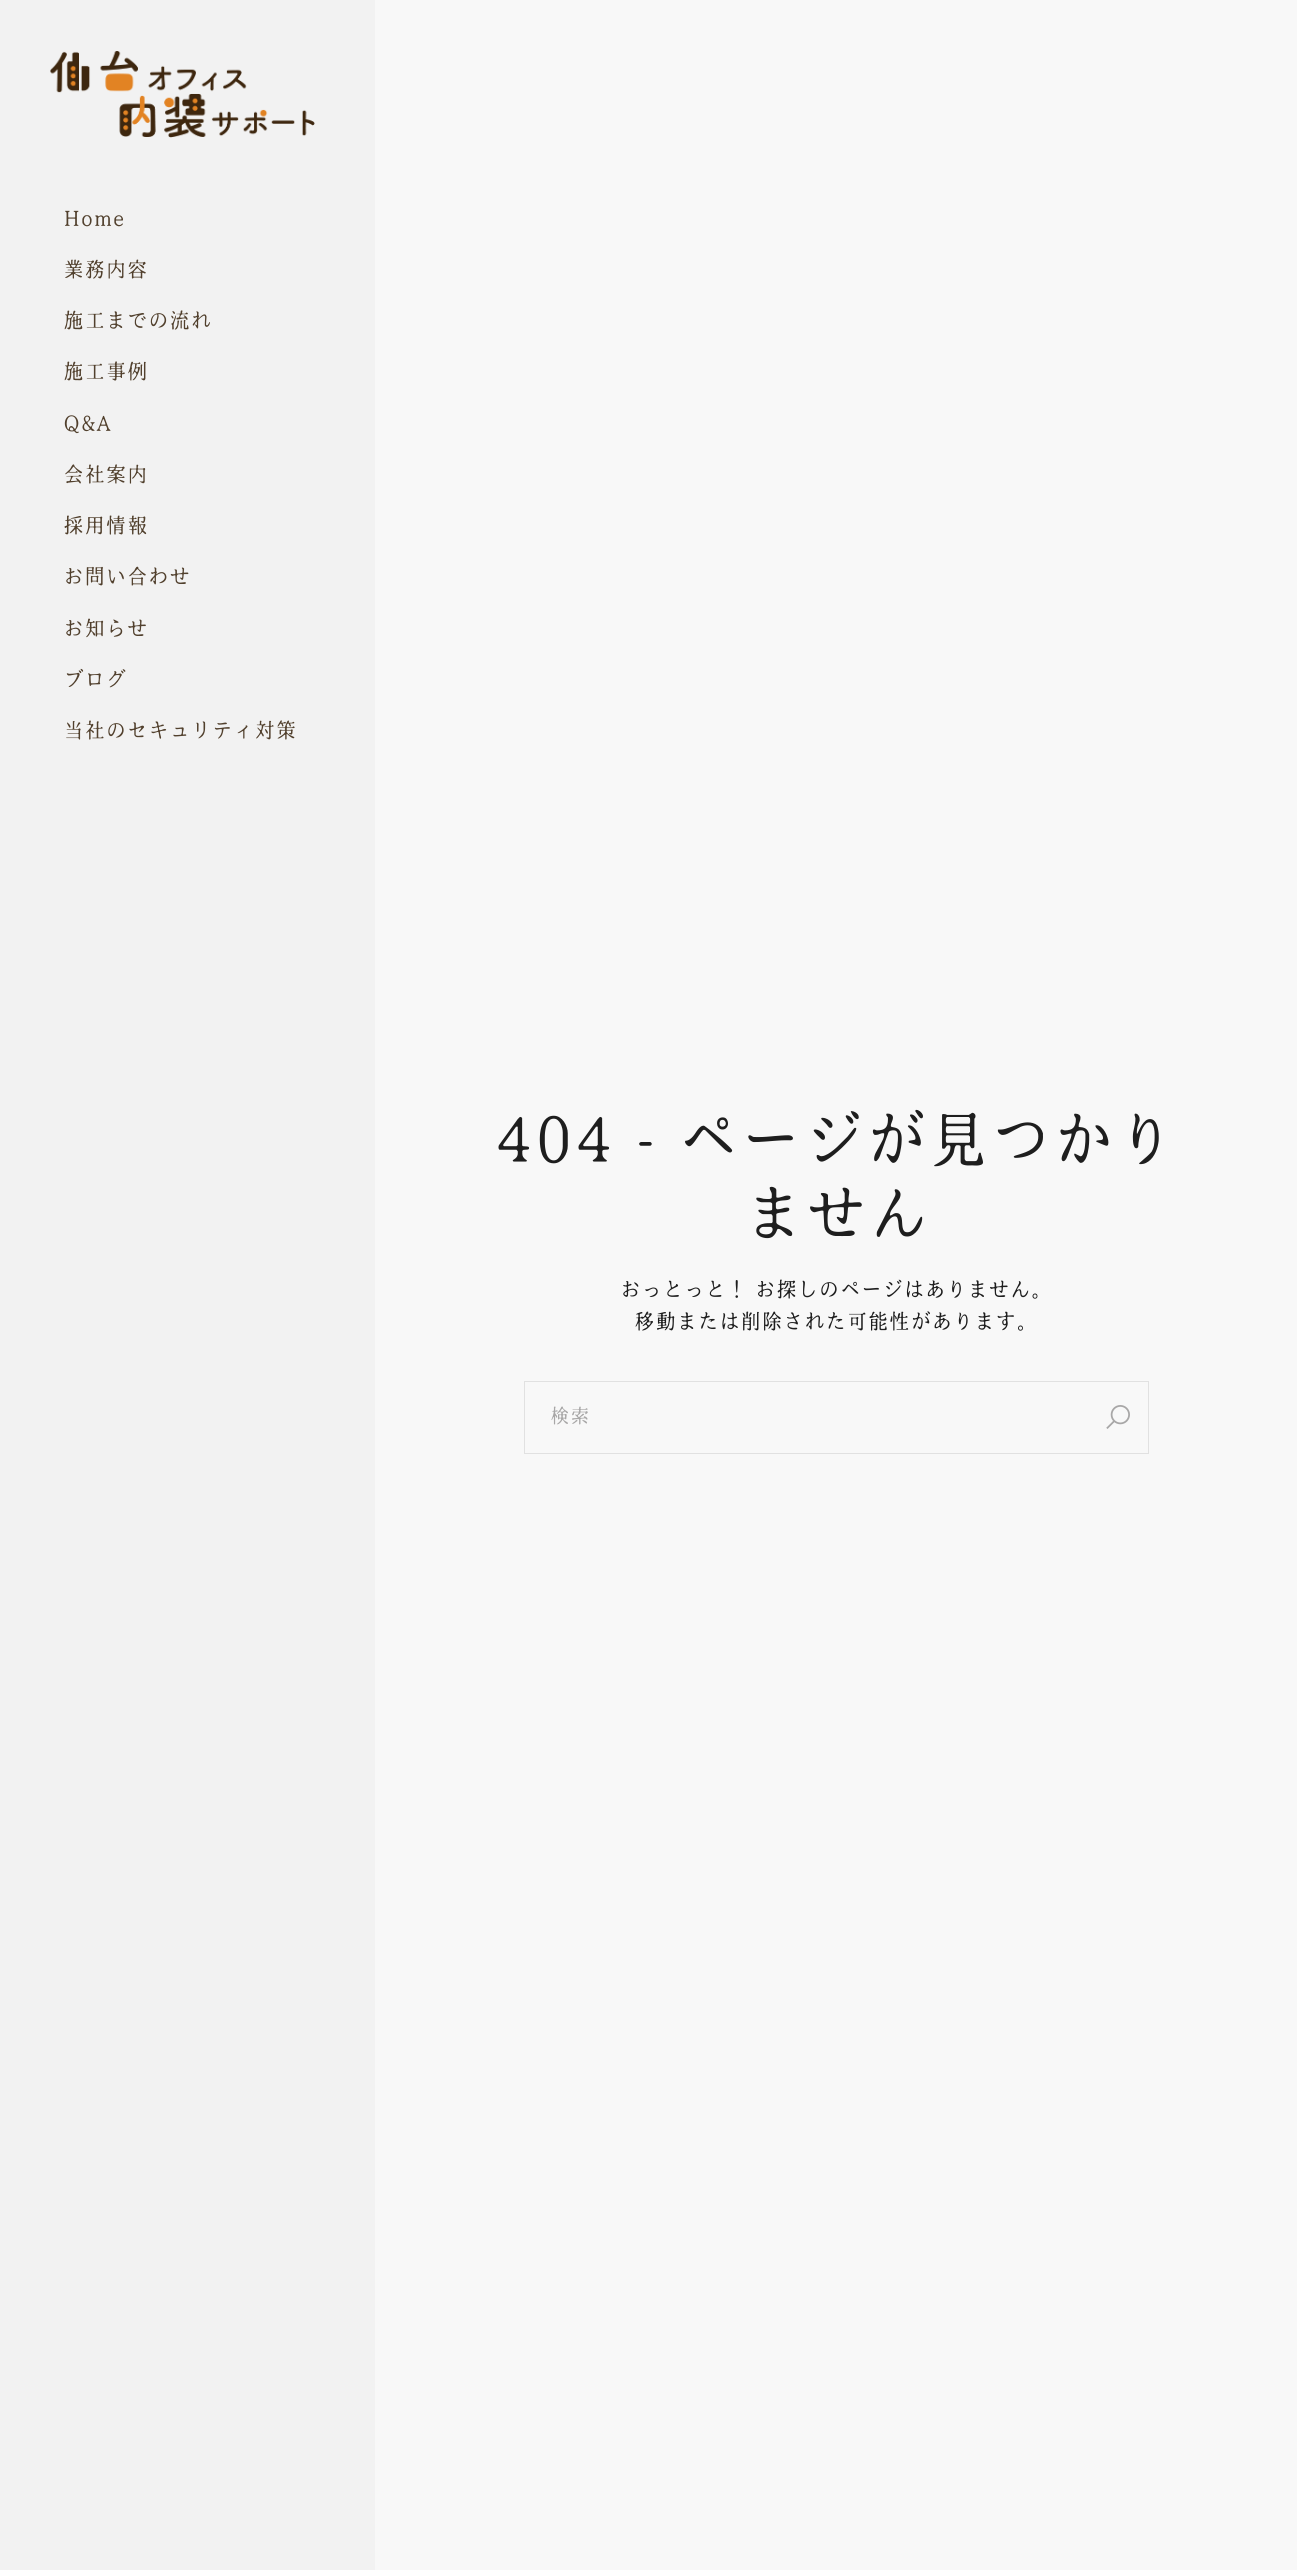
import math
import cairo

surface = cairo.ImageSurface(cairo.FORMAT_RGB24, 1297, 2570)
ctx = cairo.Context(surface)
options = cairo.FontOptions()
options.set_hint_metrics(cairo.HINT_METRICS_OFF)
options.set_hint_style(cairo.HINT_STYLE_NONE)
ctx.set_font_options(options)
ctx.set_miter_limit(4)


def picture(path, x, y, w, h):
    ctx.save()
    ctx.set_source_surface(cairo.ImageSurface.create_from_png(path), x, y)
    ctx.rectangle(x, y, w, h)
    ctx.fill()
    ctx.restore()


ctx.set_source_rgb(0.969, 0.969, 0.969)
ctx.paint()
ctx.set_source_rgb(0.949, 0.949, 0.949)
ctx.rectangle(0, 0, 375, 2570)
ctx.fill()
picture("img1.png", 50, 51, 265, 87)
ctx.select_font_face("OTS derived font")
ctx.set_font_size(21.25)
ctx.set_source_rgb(0.318, 0.251, 0.176)
ctx.move_to(63, 226)
ctx.show_text("Home")
ctx.move_to(63, 277)
ctx.show_text("業務内容")
ctx.move_to(63, 328)
ctx.show_text("施工までの流れ")
ctx.move_to(63, 379)
ctx.show_text("施工事例")
ctx.move_to(63, 431)
ctx.show_text("Q&A")
ctx.move_to(63, 482)
ctx.show_text("会社案内")
ctx.move_to(63, 533)
ctx.show_text("採用情報")
ctx.move_to(63, 584)
ctx.show_text("お問い合わせ")
ctx.move_to(63, 636)
ctx.show_text("お知らせ")
ctx.move_to(63, 687)
ctx.show_text("ブログ")
ctx.move_to(63, 738)
ctx.show_text("当社のセキュリティ対策")
ctx.set_font_size(62.5)
ctx.set_source_rgb(0.118, 0.118, 0.118)
ctx.move_to(494, 1162)
ctx.show_text("404 - ページが見つかり")
ctx.move_to(743, 1236)
ctx.show_text("ません")
ctx.set_font_size(21.25)
ctx.move_to(620, 1297)
ctx.show_text("おっとっと！ お探しのページはありません。")
ctx.move_to(634, 1329)
ctx.show_text("移動または削除された可能性があります。")
ctx.rectangle(524.5, 1381.5, 624, 72)
ctx.set_source_rgb(0.882, 0.882, 0.882)
ctx.set_line_width(1)
ctx.stroke()
ctx.set_font_size(20)
ctx.set_source_rgb(0.659, 0.655, 0.655)
ctx.move_to(550, 1423)
ctx.show_text("検索")
picture("img2.png", 1106, 1405, 24, 24)
surface.write_to_png("page.png")
